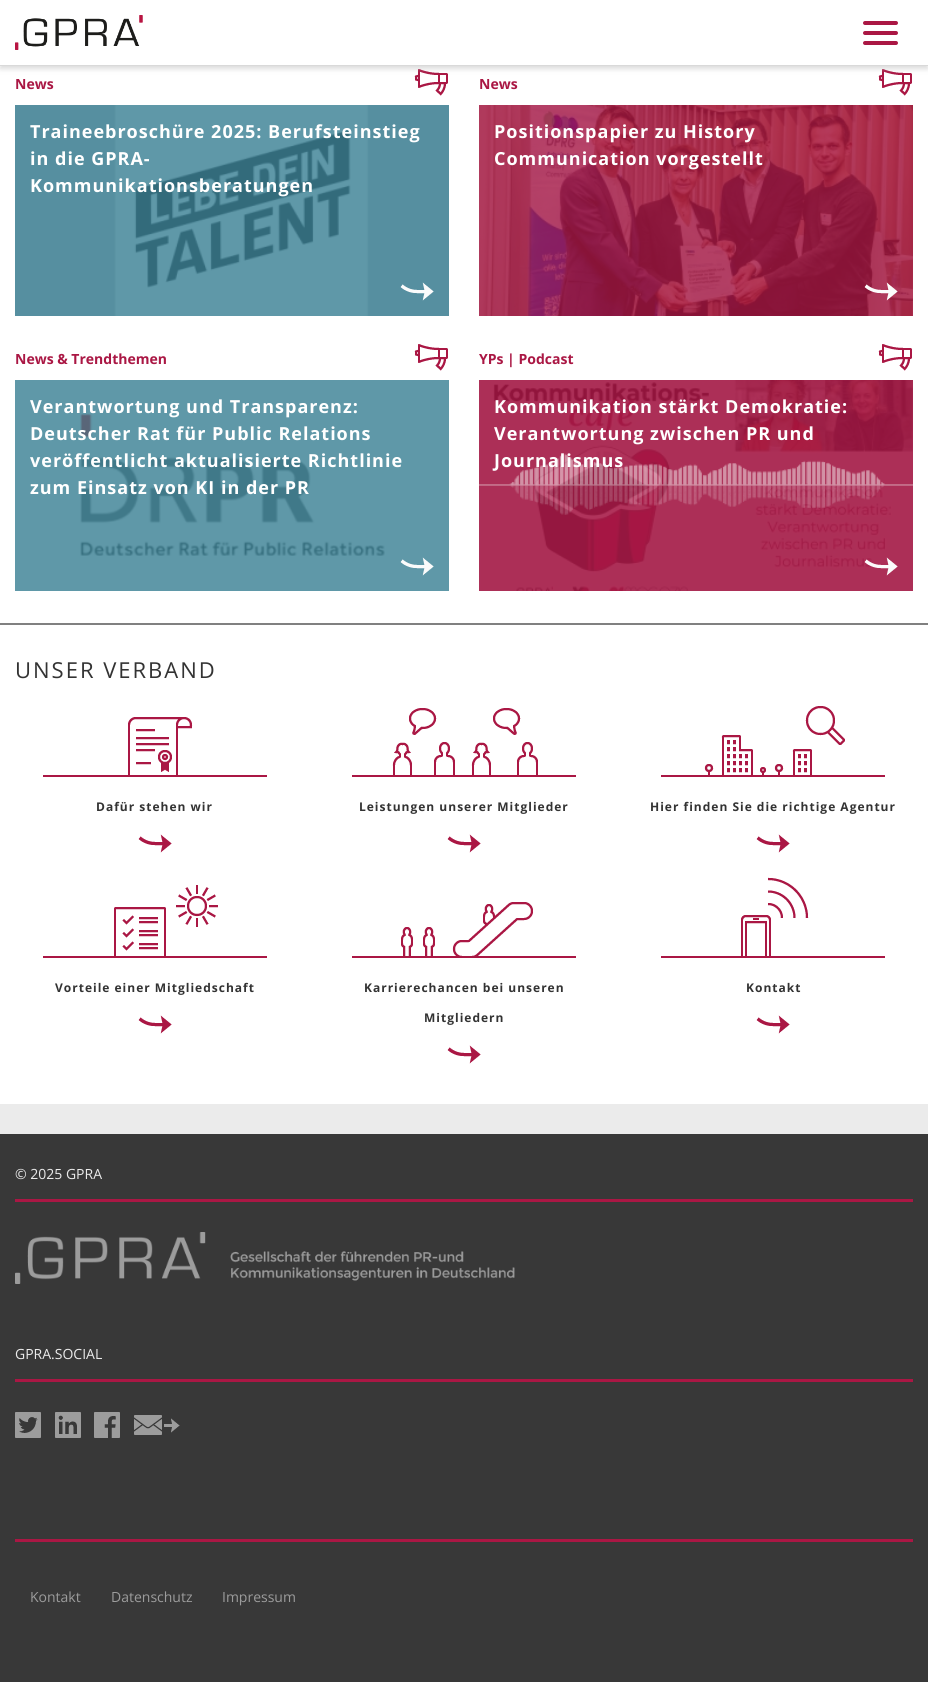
import math
import cairo

surface = cairo.ImageSurface(cairo.FORMAT_RGB24, 928, 1682)
ctx = cairo.Context(surface)
options = cairo.FontOptions()
options.set_hint_metrics(cairo.HINT_METRICS_OFF)
options.set_hint_style(cairo.HINT_STYLE_NONE)
ctx.set_font_options(options)
ctx.set_miter_limit(4)


def spaced_text(x, y, s, letter, word):
    ctx.move_to(x, y)
    for ch in s:
        ctx.show_text(ch)
        ctx.rel_move_to(letter + word * (ch == ' '), 0)


def round_rect(x, y, w, h, r):
    ctx.new_sub_path()
    for i, (u, v) in enumerate([(x + w - r, y + h - r), (x + r, y + h - r), (x + r, y + r), (x + w - r, y + r)]):
        ctx.arc(u, v, r, i * math.pi / 2, (i + 1) * math.pi / 2)
    ctx.close_path()


def shadow(x, y, w, h, r, blur, alpha):
    ctx.push_group_with_content(cairo.CONTENT_ALPHA)
    ctx.set_operator(cairo.OPERATOR_SOURCE)
    for i in range(15, -16, -2):
        e = blur * i / 6
        if min(w, h) + 2 * e > 0:
            ctx.set_source_rgba(0, 0, 0, alpha * math.erfc((i - 1) / 8.5) / 2)
            round_rect(x - e, y - e, w + 2 * e, h + 2 * e, max(0, min(r + e + blur * .6, min(w, h) / 2 + e)))
            ctx.fill()
    ctx.mask(ctx.pop_group())


def picture(path, x, y, w, h):
    ctx.save()
    ctx.set_source_surface(cairo.ImageSurface.create_from_png(path), x, y)
    ctx.rectangle(x, y, w, h)
    ctx.fill()
    ctx.restore()


ctx.set_source_rgb(0.918, 0.918, 0.918)
ctx.paint()
ctx.set_source_rgb(1, 1, 1)
ctx.rectangle(0, 66, 928, 1038)
ctx.fill()
picture("img2.png", 414, 69, 34, 27)
picture("img2.png", 878, 69, 34, 27)
ctx.set_source_rgb(0.702, 0.702, 0.702)
shadow(0, 3, 928, 66, 0, 2.5, 0.46)
ctx.set_source_rgb(1, 1, 1)
ctx.rectangle(0, 0, 928, 65)
ctx.fill()
ctx.set_source_rgb(0.851, 0.851, 0.851)
ctx.rectangle(0, 65, 928, 1)
ctx.fill()
picture("img1.png", 15, 15, 128, 35)
ctx.set_source_rgb(0.667, 0.09, 0.267)
round_rect(863, 31, 35, 4, 2)
ctx.fill()
round_rect(863, 21, 35, 4, 2)
ctx.fill()
round_rect(863, 41, 35, 4, 2)
ctx.fill()
ctx.set_source_rgb(0.373, 0.596, 0.659)
ctx.rectangle(15, 380, 434, 211)
ctx.fill()
ctx.select_font_face("Open Sans", cairo.FONT_SLANT_NORMAL, cairo.FONT_WEIGHT_BOLD)
ctx.set_font_size(14)
ctx.set_source_rgb(0.667, 0.09, 0.267)
ctx.move_to(15, 89)
ctx.show_text("News")
picture("img3.png", 15, 105, 434, 211)
ctx.set_font_size(18)
ctx.set_source_rgb(1, 1, 1)
spaced_text(30, 138, "Traineebroschüre 2025: Berufsteinstieg", 1, 0)
spaced_text(30, 165, "in die GPRA-", 1, 0)
spaced_text(30, 192, "Kommunikationsberatungen", 1, 0)
picture("img4.png", 400, 282, 34, 19)
ctx.set_font_size(14)
ctx.set_source_rgb(0.667, 0.09, 0.267)
ctx.move_to(479, 89)
ctx.show_text("News")
picture("img5.png", 479, 105, 434, 211)
ctx.set_font_size(18)
ctx.set_source_rgb(1, 1, 1)
spaced_text(494, 138, "Positionspapier zu History", 1, 0)
spaced_text(494, 165, "Communication vorgestellt", 1, 0)
picture("img6.png", 864, 282, 34, 19)
ctx.set_font_size(14)
ctx.set_source_rgb(0.667, 0.09, 0.267)
ctx.move_to(15, 364)
ctx.show_text("News & Trendthemen")
picture("img2.png", 414, 344, 34, 27)
picture("img7.png", 80, 413, 305, 143)
ctx.set_font_size(18)
ctx.set_source_rgb(1, 1, 1)
spaced_text(30, 413, "Verantwortung und Transparenz:", 1, 0)
spaced_text(30, 440, "Deutscher Rat für Public Relations", 1, 0)
spaced_text(30, 467, "veröffentlicht aktualisierte Richtlinie", 1, 0)
spaced_text(30, 494, "zum Einsatz von KI in der PR", 1, 0)
picture("img8.png", 400, 557, 34, 19)
ctx.set_font_size(14)
ctx.set_source_rgb(0.667, 0.09, 0.267)
ctx.move_to(479, 364)
ctx.show_text("YPs | Podcast")
picture("img2.png", 878, 344, 34, 27)
ctx.set_source_rgb(0.647, 0.09, 0.267)
ctx.rectangle(479, 380, 434, 211)
ctx.fill()
picture("img10.png", 479, 453, 434, 62)
picture("img9.png", 479, 380, 434, 211)
ctx.set_font_size(18)
ctx.set_source_rgb(1, 1, 1)
spaced_text(494, 413, "Kommunikation stärkt Demokratie:", 1, 0)
spaced_text(494, 440, "Verantwortung zwischen PR und", 1, 0)
spaced_text(494, 467, "Journalismus", 1, 0)
picture("img11.png", 864, 557, 34, 19)
ctx.set_source_rgb(0.502, 0.502, 0.502)
ctx.rectangle(0, 623, 928, 2)
ctx.fill()
ctx.select_font_face("Open Sans")
ctx.set_font_size(22)
ctx.set_source_rgb(0.2, 0.2, 0.2)
spaced_text(15, 678, "UNSER VERBAND", 2, 0)
picture("img12.png", 43, 717, 224, 60)
ctx.select_font_face("Open Sans", cairo.FONT_SLANT_NORMAL, cairo.FONT_WEIGHT_BOLD)
ctx.set_font_size(12)
spaced_text(96, 811, "Dafür stehen wir", 1, 0)
picture("img13.png", 138, 834, 34, 19)
picture("img14.png", 352, 708, 224, 69)
spaced_text(359, 811, "Leistungen unserer Mitglieder", 1, 0)
picture("img13.png", 447, 834, 34, 19)
picture("img15.png", 661, 706, 224, 71)
spaced_text(650, 811, "Hier finden Sie die richtige Agentur", 1, 0)
picture("img13.png", 756, 834, 34, 19)
picture("img16.png", 43, 885, 224, 73)
spaced_text(55, 992, "Vorteile einer Mitgliedschaft", 1, 0)
picture("img13.png", 138, 1015, 34, 19)
picture("img17.png", 352, 902, 224, 56)
spaced_text(364, 992, "Karrierechancen bei unseren", 1, 0)
spaced_text(424, 1022, "Mitgliedern", 1, 0)
picture("img13.png", 447, 1045, 34, 19)
picture("img18.png", 661, 877, 224, 81)
spaced_text(746, 992, "Kontakt", 1, 0)
picture("img13.png", 756, 1015, 34, 19)
ctx.set_source_rgb(0.22, 0.22, 0.22)
ctx.rectangle(0, 1134, 928, 548)
ctx.fill()
ctx.set_source_rgb(0.667, 0.09, 0.267)
ctx.rectangle(15, 1199, 898, 3)
ctx.fill()
ctx.select_font_face("Open Sans")
ctx.set_font_size(14)
ctx.set_source_rgb(0.918, 0.918, 0.918)
ctx.move_to(15, 1179)
ctx.show_text("© 2025 GPRA")
picture("img19.png", 15, 1232, 500, 52)
ctx.set_source_rgb(0.667, 0.09, 0.267)
ctx.rectangle(15, 1379, 898, 3)
ctx.fill()
ctx.set_source_rgb(0.918, 0.918, 0.918)
ctx.move_to(15, 1359)
ctx.show_text("GPRA.SOCIAL")
picture("img20.png", 15, 1412, 26, 26)
picture("img21.png", 55, 1412, 26, 26)
picture("img22.png", 94, 1412, 26, 26)
picture("img23.png", 134, 1415, 46, 20)
ctx.set_source_rgb(0.667, 0.09, 0.267)
ctx.rectangle(15, 1539, 898, 3)
ctx.fill()
ctx.set_source_rgb(0.612, 0.612, 0.612)
ctx.move_to(30, 1602)
ctx.show_text("Kontakt")
ctx.move_to(111, 1602)
ctx.show_text("Datenschutz")
ctx.move_to(222, 1602)
ctx.show_text("Impressum")
surface.write_to_png("page.png")
